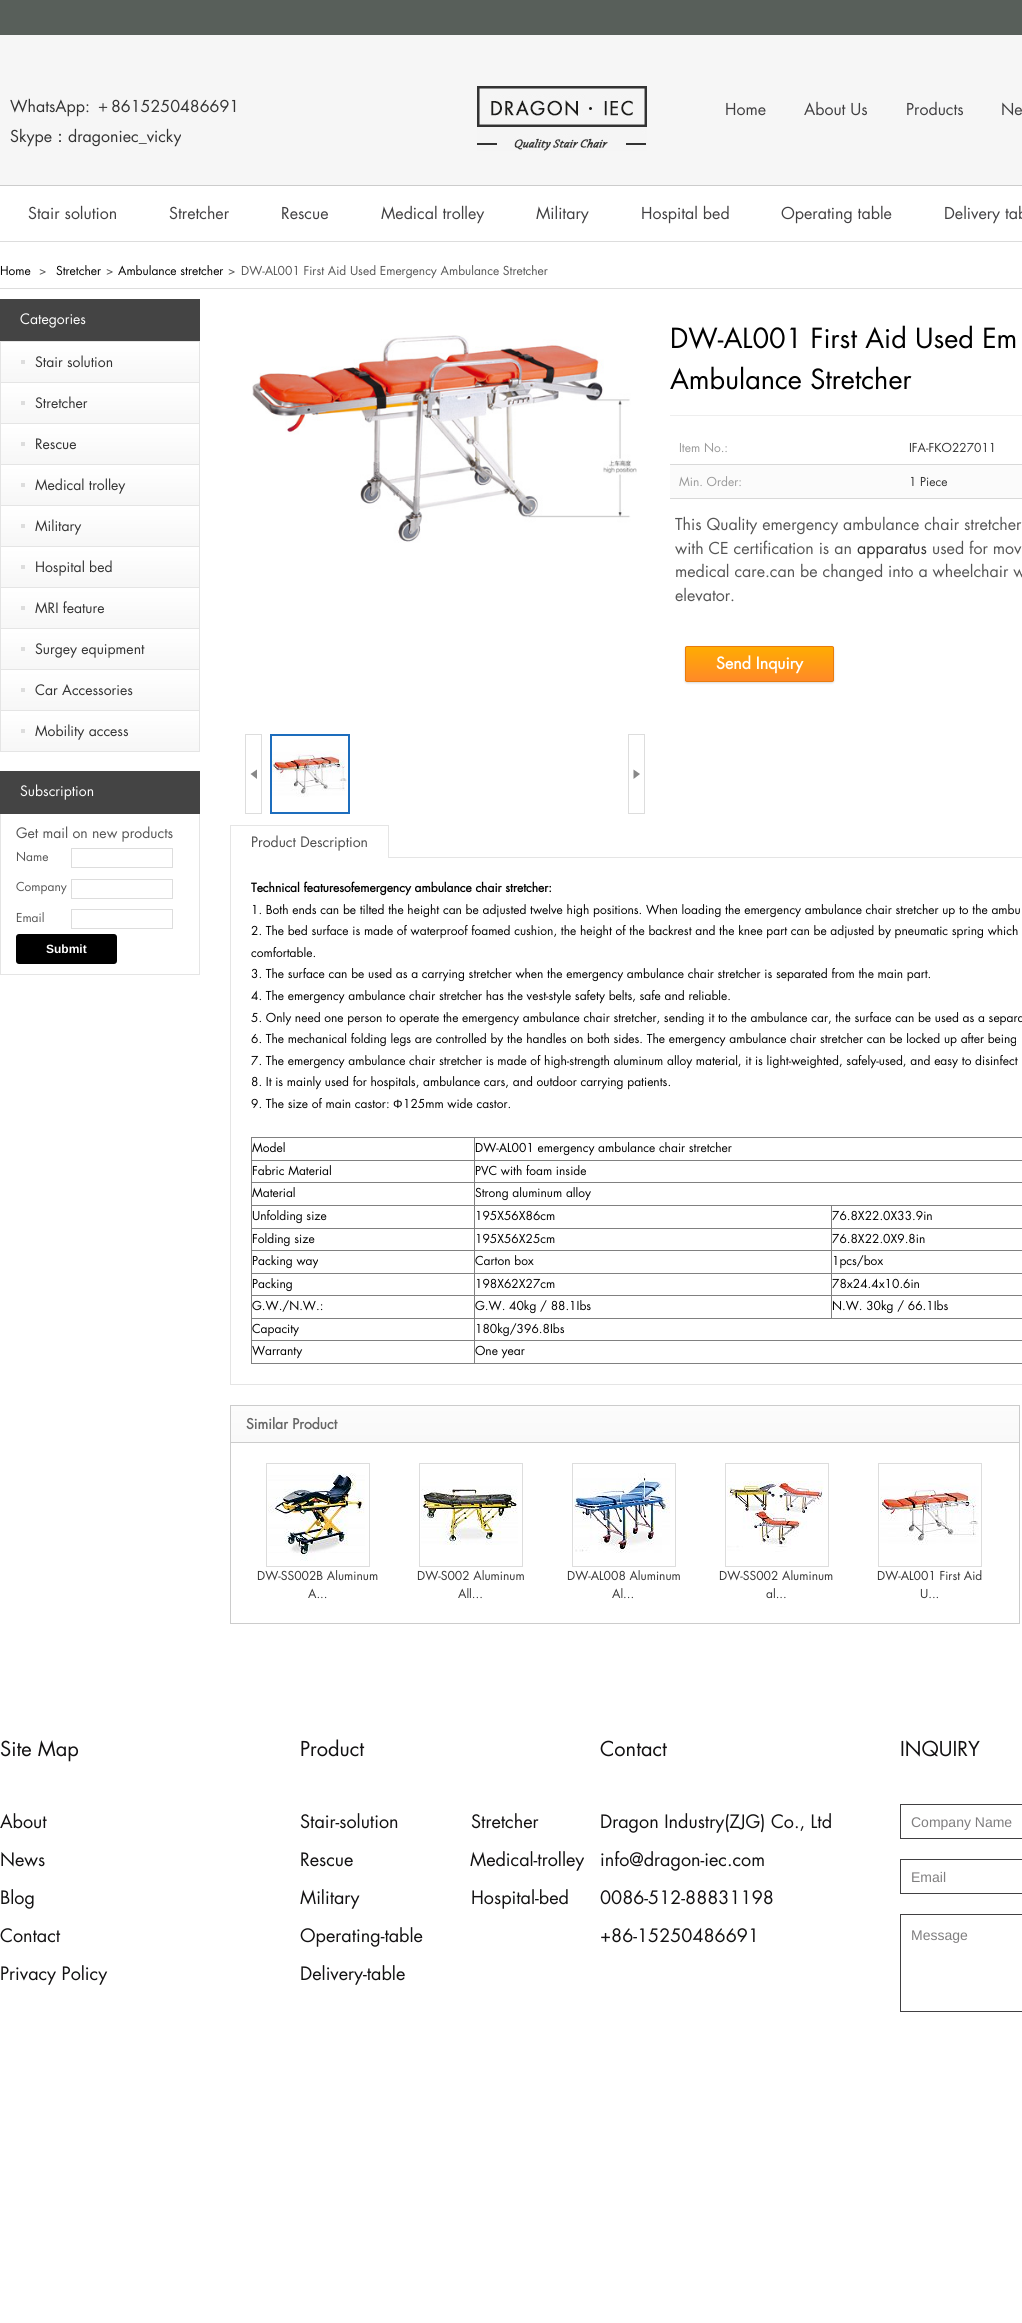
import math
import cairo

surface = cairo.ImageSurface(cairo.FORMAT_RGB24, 1022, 2323)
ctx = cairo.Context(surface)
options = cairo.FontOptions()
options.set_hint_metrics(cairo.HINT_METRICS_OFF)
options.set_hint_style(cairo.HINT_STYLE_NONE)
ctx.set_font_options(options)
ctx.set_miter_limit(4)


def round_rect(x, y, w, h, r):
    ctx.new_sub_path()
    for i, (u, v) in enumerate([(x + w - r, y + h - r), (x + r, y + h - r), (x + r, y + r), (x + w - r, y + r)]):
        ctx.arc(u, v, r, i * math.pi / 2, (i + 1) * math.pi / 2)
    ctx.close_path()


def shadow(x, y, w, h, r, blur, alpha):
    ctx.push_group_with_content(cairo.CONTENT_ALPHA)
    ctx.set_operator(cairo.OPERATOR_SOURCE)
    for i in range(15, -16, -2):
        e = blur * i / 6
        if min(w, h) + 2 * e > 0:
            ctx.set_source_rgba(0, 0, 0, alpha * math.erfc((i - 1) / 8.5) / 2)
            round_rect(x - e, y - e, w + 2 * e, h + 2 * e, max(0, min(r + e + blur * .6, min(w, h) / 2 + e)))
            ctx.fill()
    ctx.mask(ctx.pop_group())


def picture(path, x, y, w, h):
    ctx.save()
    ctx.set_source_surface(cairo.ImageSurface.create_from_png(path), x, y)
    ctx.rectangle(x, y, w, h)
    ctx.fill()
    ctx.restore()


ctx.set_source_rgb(1, 1, 1)
ctx.paint()
ctx.set_source_rgb(0.345, 0.373, 0.353)
ctx.rectangle(0, 0, 1022, 35)
ctx.fill()
ctx.set_source_rgb(0.961, 0.961, 0.961)
ctx.rectangle(0, 35, 1022, 150)
ctx.fill()
ctx.set_source_rgb(0.8, 0.8, 0.8)
ctx.rectangle(0, 185, 1022, 1)
ctx.fill()
ctx.select_font_face("Futura")
ctx.set_font_size(16)
ctx.set_source_rgb(0.2, 0.2, 0.2)
ctx.move_to(10, 112)
ctx.show_text("WhatsApp:")
ctx.select_font_face("WenQuanYi Zen Hei Medium")
ctx.move_to(95, 112)
ctx.show_text("＋")
ctx.select_font_face("Futura")
ctx.move_to(111, 112)
ctx.show_text("8615250486691")
ctx.move_to(10, 142)
ctx.show_text("Skype")
ctx.select_font_face("WenQuanYi Zen Hei Medium")
ctx.move_to(52, 142)
ctx.show_text("：")
ctx.select_font_face("Futura")
ctx.move_to(68, 142)
ctx.show_text("dragoniec_vicky")
picture("img1.png", 477, 86, 170, 65)
ctx.set_source_rgb(0.255, 0.251, 0.259)
ctx.move_to(725, 115)
ctx.show_text("Home")
ctx.move_to(804, 115)
ctx.show_text("About Us")
ctx.move_to(906, 115)
ctx.show_text("Products")
ctx.move_to(1001, 115)
ctx.show_text("Ne")
ctx.set_source_rgb(0.867, 0.867, 0.867)
ctx.rectangle(0, 241, 1022, 1)
ctx.fill()
ctx.set_source_rgb(0.255, 0.251, 0.259)
ctx.move_to(28, 219)
ctx.show_text("Stair solution")
ctx.move_to(169, 219)
ctx.show_text("Stretcher")
ctx.move_to(281, 219)
ctx.show_text("Rescue")
ctx.move_to(381, 219)
ctx.show_text("Medical trolley")
ctx.move_to(536, 219)
ctx.show_text("Military")
ctx.move_to(641, 219)
ctx.show_text("Hospital bed")
ctx.move_to(781, 219)
ctx.show_text("Operating table")
ctx.move_to(944, 219)
ctx.show_text("Delivery tab")
ctx.set_source_rgb(0.867, 0.867, 0.867)
ctx.rectangle(0, 288, 1022, 1)
ctx.fill()
ctx.set_font_size(12)
ctx.set_source_rgb(0, 0, 0)
ctx.move_to(0, 275)
ctx.show_text("Home")
ctx.set_source_rgb(0.333, 0.333, 0.333)
ctx.move_to(39, 275)
ctx.show_text(">")
ctx.set_source_rgb(0, 0, 0)
ctx.move_to(56, 275)
ctx.show_text("Stretcher")
ctx.set_source_rgb(0.333, 0.333, 0.333)
ctx.move_to(106, 275)
ctx.show_text(">")
ctx.set_source_rgb(0, 0, 0)
ctx.move_to(118, 275)
ctx.show_text("Ambulance stretcher")
ctx.set_source_rgb(0.333, 0.333, 0.333)
ctx.move_to(228, 275)
ctx.show_text(">")
ctx.move_to(241, 275)
ctx.show_text("DW-AL001 First Aid Used Emergency Ambulance Stretcher")
ctx.set_source_rgb(0.267, 0.267, 0.267)
ctx.rectangle(0, 299, 200, 42)
ctx.fill()
ctx.set_font_size(14)
ctx.set_source_rgb(1, 1, 1)
ctx.move_to(20, 324)
ctx.show_text("Categories")
picture("img2.png", 0, 341, 200, 42)
ctx.set_source_rgb(0.2, 0.2, 0.2)
ctx.move_to(35, 367)
ctx.show_text("Stair solution")
picture("img3.png", 0, 383, 200, 41)
ctx.move_to(35, 408)
ctx.show_text("Stretcher")
picture("img3.png", 0, 424, 200, 41)
ctx.move_to(35, 449)
ctx.show_text("Rescue")
picture("img3.png", 0, 465, 200, 41)
ctx.move_to(35, 490)
ctx.show_text("Medical trolley")
picture("img3.png", 0, 506, 200, 41)
ctx.move_to(35, 531)
ctx.show_text("Military")
picture("img3.png", 0, 547, 200, 41)
ctx.move_to(35, 572)
ctx.show_text("Hospital bed")
picture("img3.png", 0, 588, 200, 41)
ctx.move_to(35, 613)
ctx.show_text("MRI feature")
picture("img3.png", 0, 629, 200, 41)
ctx.move_to(35, 654)
ctx.show_text("Surgey equipment")
picture("img3.png", 0, 670, 200, 41)
ctx.move_to(35, 695)
ctx.show_text("Car Accessories")
picture("img3.png", 0, 711, 200, 41)
ctx.move_to(35, 736)
ctx.show_text("Mobility access")
ctx.set_source_rgb(0.267, 0.267, 0.267)
ctx.rectangle(0, 771, 200, 43)
ctx.fill()
ctx.set_source_rgb(1, 1, 1)
ctx.move_to(20, 796)
ctx.show_text("Subscription")
ctx.set_source_rgb(0.898, 0.898, 0.898)
ctx.rectangle(199, 814, 1, 161)
ctx.fill()
ctx.rectangle(0, 974, 200, 1)
ctx.fill()
ctx.rectangle(0, 814, 1, 161)
ctx.fill()
ctx.set_source_rgb(0.333, 0.333, 0.333)
ctx.move_to(16, 838)
ctx.show_text("Get mail on new products")
ctx.set_font_size(12)
ctx.move_to(16, 861)
ctx.show_text("Name")
ctx.rectangle(71.5, 848.5, 101, 19)
ctx.set_source_rgb(0.867, 0.867, 0.867)
ctx.set_line_width(1)
ctx.stroke()
ctx.set_source_rgb(0.333, 0.333, 0.333)
ctx.move_to(16, 891)
ctx.show_text("Company")
ctx.rectangle(71.5, 879.5, 101, 19)
ctx.set_source_rgb(0.867, 0.867, 0.867)
ctx.stroke()
ctx.set_source_rgb(0.333, 0.333, 0.333)
ctx.move_to(16, 922)
ctx.show_text("Email")
ctx.rectangle(71.5, 909.5, 101, 19)
ctx.set_source_rgb(0.867, 0.867, 0.867)
ctx.stroke()
ctx.set_source_rgb(0, 0, 0)
round_rect(16, 934, 101, 30, 3)
ctx.fill()
ctx.select_font_face("Liberation Sans", cairo.FONT_SLANT_NORMAL, cairo.FONT_WEIGHT_BOLD)
ctx.set_source_rgb(1, 1, 1)
ctx.move_to(46, 953)
ctx.show_text("Submit")
picture("img4.png", 252, 335, 385, 208)
ctx.rectangle(245.5, 734.5, 16, 79)
ctx.set_source_rgb(0.867, 0.867, 0.867)
ctx.stroke()
ctx.set_source_rgb(0.533, 0.533, 0.533)
ctx.new_path()
ctx.move_to(250.5, 774)
ctx.line_to(257, 769.5)
ctx.line_to(257, 779)
ctx.close_path()
ctx.fill()
ctx.rectangle(271, 735, 78, 78)
ctx.set_source_rgb(0.114, 0.427, 0.741)
ctx.set_line_width(2)
ctx.stroke()
picture("img5.png", 272, 750, 75, 47)
ctx.rectangle(628.5, 734.5, 16, 79)
ctx.set_source_rgb(0.867, 0.867, 0.867)
ctx.set_line_width(1)
ctx.stroke()
ctx.set_source_rgb(0.533, 0.533, 0.533)
ctx.new_path()
ctx.move_to(633.5, 779)
ctx.line_to(633.5, 769.5)
ctx.line_to(640, 774)
ctx.close_path()
ctx.fill()
ctx.select_font_face("Futura")
ctx.set_font_size(27)
ctx.set_source_rgb(0, 0, 0)
ctx.move_to(670, 348)
ctx.show_text("DW-AL001 First Aid Used Em")
ctx.move_to(670, 389)
ctx.show_text("Ambulance Stretcher")
ctx.set_source_rgb(0.933, 0.933, 0.933)
ctx.rectangle(670, 415, 352, 1)
ctx.fill()
ctx.set_font_size(12)
ctx.set_source_rgb(0.6, 0.6, 0.6)
ctx.move_to(679, 452)
ctx.show_text("Item No.:")
ctx.set_source_rgb(0.851, 0.851, 0.851)
ctx.rectangle(670, 464, 352, 1)
ctx.fill()
ctx.set_source_rgb(0.2, 0.2, 0.2)
ctx.move_to(909, 452)
ctx.show_text("IFA-FKO227011")
ctx.set_source_rgb(0.984, 0.984, 0.984)
ctx.rectangle(670, 465, 352, 33)
ctx.fill()
ctx.set_source_rgb(0.6, 0.6, 0.6)
ctx.move_to(679, 486)
ctx.show_text("Min. Order:")
ctx.set_source_rgb(0.851, 0.851, 0.851)
ctx.rectangle(670, 498, 352, 1)
ctx.fill()
ctx.set_source_rgb(0.2, 0.2, 0.2)
ctx.move_to(909, 486)
ctx.show_text("1 Piece")
ctx.set_font_size(16)
ctx.set_source_rgb(0.333, 0.333, 0.333)
ctx.move_to(675, 530)
ctx.show_text("This Quality emergency ambulance chair stretcher")
ctx.move_to(675, 554)
ctx.show_text("with CE certification is an")
ctx.set_source_rgb(0.2, 0.2, 0.2)
ctx.move_to(857, 554)
ctx.show_text("apparatus")
ctx.set_source_rgb(0.333, 0.333, 0.333)
ctx.move_to(932, 554)
ctx.show_text("used for mov")
ctx.move_to(675, 577)
ctx.show_text("medical care.can be changed into a wheelchair w")
ctx.move_to(675, 601)
ctx.show_text("elevator.")
ctx.set_source_rgb(0, 0, 0)
shadow(685, 647, 149, 36, 2, 1, 0.15)
ctx.save()
round_rect(685, 646, 149, 36, 2)
ctx.clip()
gradient = cairo.LinearGradient(760, 647, 760, 681)
gradient.add_color_stop_rgba(0, 1, 0.671, 0.008, 1)
gradient.add_color_stop_rgba(1, 1, 0.541, 0.157, 1)
ctx.set_source(gradient)
ctx.rectangle(685, 647, 149, 34)
ctx.fill()
ctx.restore()
round_rect(685.5, 646.5, 148, 35, 1.5)
ctx.set_source_rgb(0.91, 0.482, 0.055)
ctx.stroke()
ctx.select_font_face("Futura", cairo.FONT_SLANT_NORMAL, cairo.FONT_WEIGHT_BOLD)
ctx.set_source_rgb(1, 1, 1)
ctx.move_to(716, 669)
ctx.show_text("Send Inquiry")
ctx.set_source_rgb(0.898, 0.898, 0.898)
ctx.rectangle(389, 857, 633, 1)
ctx.fill()
ctx.rectangle(230, 825, 159, 1)
ctx.fill()
ctx.rectangle(388, 825, 1, 33)
ctx.fill()
ctx.rectangle(230, 825, 1, 33)
ctx.fill()
ctx.select_font_face("Futura")
ctx.set_font_size(14)
ctx.set_source_rgb(0.302, 0.302, 0.302)
ctx.move_to(251, 847)
ctx.show_text("Product Description")
ctx.set_source_rgb(0.898, 0.898, 0.898)
ctx.rectangle(230, 1384, 792, 1)
ctx.fill()
ctx.rectangle(230, 858, 1, 527)
ctx.fill()
ctx.select_font_face("Futura", cairo.FONT_SLANT_NORMAL, cairo.FONT_WEIGHT_BOLD)
ctx.set_font_size(12)
ctx.set_source_rgb(0, 0, 0)
ctx.move_to(251, 892)
ctx.show_text("Technical featuresofemergency ambulance chair stretcher:")
ctx.select_font_face("Futura")
ctx.move_to(251, 914)
ctx.show_text("1. Both ends can be tilted the height can be adjusted twelve high positions. When loading the emergency ambulance chair stretcher up to the ambu")
ctx.move_to(251, 935)
ctx.show_text("2. The bed surface is made of waterproof foamed cushion, the height of the backrest and the knee part can be adjusted by pneumatic spring which")
ctx.move_to(251, 957)
ctx.show_text("comfortable.")
ctx.move_to(251, 978)
ctx.show_text("3. The surface can be used as a carrying stretcher when the emergency ambulance chair stretcher is separated from the main part.")
ctx.move_to(251, 1000)
ctx.show_text("4. The emergency ambulance chair stretcher has the vest-style safety belts, safe and reliable.")
ctx.move_to(251, 1022)
ctx.show_text("5. Only need one person to operate the emergency ambulance chair stretcher, sending it to the ambulance car, the surface can be used as a separa")
ctx.move_to(251, 1043)
ctx.show_text("6. The mechanical folding legs are controlled by the handles on both sides. The emergency ambulance chair stretcher can be locked up after being")
ctx.move_to(251, 1065)
ctx.show_text("7. The emergency ambulance chair stretcher is made of high-strength aluminum alloy material, it is light-weighted, safely-used, and easy to disinfect")
ctx.move_to(251, 1086)
ctx.show_text("8. It is mainly used for hospitals, ambulance cars, and outdoor carrying patients.")
ctx.move_to(251, 1108)
ctx.show_text("9. The size of main castor:")
ctx.select_font_face("Liberation Sans")
ctx.move_to(393, 1108)
ctx.show_text("Φ")
ctx.select_font_face("Futura")
ctx.move_to(403, 1108)
ctx.show_text("125mm wide castor.")
ctx.set_source_rgb(0.502, 0.502, 0.502)
ctx.rectangle(251, 1137, 771, 1)
ctx.fill()
ctx.rectangle(251, 1363, 771, 1)
ctx.fill()
ctx.rectangle(251, 1137, 1, 227)
ctx.fill()
ctx.set_source_rgb(0, 0, 0)
ctx.move_to(252, 1152)
ctx.show_text("Model")
ctx.set_source_rgb(0.502, 0.502, 0.502)
ctx.rectangle(474, 1160, 548, 1)
ctx.fill()
ctx.rectangle(474, 1182, 548, 1)
ctx.fill()
ctx.rectangle(831, 1205, 191, 1)
ctx.fill()
ctx.rectangle(831, 1228, 191, 1)
ctx.fill()
ctx.rectangle(831, 1250, 191, 1)
ctx.fill()
ctx.rectangle(831, 1273, 191, 1)
ctx.fill()
ctx.rectangle(831, 1295, 191, 1)
ctx.fill()
ctx.rectangle(474, 1318, 548, 1)
ctx.fill()
ctx.rectangle(831, 1295, 1, 24)
ctx.fill()
ctx.rectangle(474, 1295, 358, 1)
ctx.fill()
ctx.rectangle(831, 1273, 1, 23)
ctx.fill()
ctx.rectangle(474, 1273, 358, 1)
ctx.fill()
ctx.rectangle(831, 1250, 1, 24)
ctx.fill()
ctx.rectangle(474, 1250, 358, 1)
ctx.fill()
ctx.rectangle(831, 1228, 1, 23)
ctx.fill()
ctx.rectangle(474, 1228, 358, 1)
ctx.fill()
ctx.rectangle(831, 1205, 1, 24)
ctx.fill()
ctx.rectangle(474, 1205, 358, 1)
ctx.fill()
ctx.rectangle(474, 1340, 548, 1)
ctx.fill()
ctx.rectangle(474, 1340, 1, 24)
ctx.fill()
ctx.rectangle(251, 1340, 224, 1)
ctx.fill()
ctx.rectangle(474, 1318, 1, 23)
ctx.fill()
ctx.rectangle(251, 1318, 224, 1)
ctx.fill()
ctx.rectangle(474, 1295, 1, 24)
ctx.fill()
ctx.rectangle(251, 1295, 224, 1)
ctx.fill()
ctx.rectangle(474, 1273, 1, 23)
ctx.fill()
ctx.rectangle(251, 1273, 224, 1)
ctx.fill()
ctx.rectangle(474, 1250, 1, 24)
ctx.fill()
ctx.rectangle(251, 1250, 224, 1)
ctx.fill()
ctx.rectangle(474, 1228, 1, 23)
ctx.fill()
ctx.rectangle(251, 1228, 224, 1)
ctx.fill()
ctx.rectangle(474, 1205, 1, 24)
ctx.fill()
ctx.rectangle(251, 1205, 224, 1)
ctx.fill()
ctx.rectangle(474, 1182, 1, 24)
ctx.fill()
ctx.rectangle(251, 1182, 224, 1)
ctx.fill()
ctx.rectangle(474, 1160, 1, 23)
ctx.fill()
ctx.rectangle(251, 1160, 224, 1)
ctx.fill()
ctx.rectangle(474, 1137, 1, 24)
ctx.fill()
ctx.set_source_rgb(0, 0, 0)
ctx.move_to(475, 1152)
ctx.show_text("DW-AL001 emergency ambulance chair stretcher")
ctx.move_to(252, 1175)
ctx.show_text("Fabric Material")
ctx.move_to(475, 1175)
ctx.show_text("PVC with foam inside")
ctx.move_to(252, 1197)
ctx.show_text("Material")
ctx.move_to(475, 1197)
ctx.show_text("Strong aluminum alloy")
ctx.move_to(252, 1220)
ctx.show_text("Unfolding size")
ctx.move_to(475, 1220)
ctx.show_text("195X56X86cm")
ctx.move_to(832, 1220)
ctx.show_text("76.8X22.0X33.9in")
ctx.move_to(252, 1243)
ctx.show_text("Folding size")
ctx.move_to(475, 1243)
ctx.show_text("195X56X25cm")
ctx.move_to(832, 1243)
ctx.show_text("76.8X22.0X9.8in")
ctx.move_to(252, 1265)
ctx.show_text("Packing way")
ctx.move_to(475, 1265)
ctx.show_text("Carton box")
ctx.move_to(832, 1265)
ctx.show_text("1pcs/box")
ctx.move_to(252, 1288)
ctx.show_text("Packing")
ctx.move_to(475, 1288)
ctx.show_text("198X62X27cm")
ctx.move_to(832, 1288)
ctx.show_text("78x24.4x10.6in")
ctx.move_to(252, 1310)
ctx.show_text("G.W./N.W.:")
ctx.move_to(475, 1310)
ctx.show_text("G.W. 40kg / 88.1Ibs")
ctx.move_to(832, 1310)
ctx.show_text("N.W. 30kg / 66.1Ibs")
ctx.move_to(252, 1333)
ctx.show_text("Capacity")
ctx.move_to(475, 1333)
ctx.show_text("180kg/396.8Ibs")
ctx.move_to(252, 1355)
ctx.show_text("Warranty")
ctx.move_to(475, 1355)
ctx.show_text("One year")
ctx.set_source_rgb(0.8, 0.8, 0.8)
ctx.rectangle(230, 1405, 790, 1)
ctx.fill()
ctx.rectangle(1019, 1405, 1, 219)
ctx.fill()
ctx.rectangle(230, 1405, 1, 219)
ctx.fill()
gradient = cairo.LinearGradient(231, 1406, 231, 1442)
gradient.add_color_stop_rgba(0, 0.988, 0.988, 0.988, 1)
gradient.add_color_stop_rgba(1, 0.976, 0.976, 0.976, 1)
ctx.set_source(gradient)
ctx.rectangle(231, 1406, 788, 36)
ctx.fill()
ctx.set_source_rgb(0.8, 0.8, 0.8)
ctx.rectangle(231, 1442, 788, 1)
ctx.fill()
ctx.select_font_face("Futura", cairo.FONT_SLANT_NORMAL, cairo.FONT_WEIGHT_BOLD)
ctx.set_font_size(14)
ctx.set_source_rgb(0.396, 0.396, 0.396)
ctx.move_to(246, 1429)
ctx.show_text("Similar Product")
ctx.set_source_rgb(0.8, 0.8, 0.8)
ctx.rectangle(231, 1623, 788, 1)
ctx.fill()
ctx.rectangle(266.5, 1463.5, 103, 103)
ctx.set_source_rgb(0.867, 0.867, 0.867)
ctx.stroke()
picture("img6.png", 268, 1471, 97, 90)
ctx.select_font_face("Futura")
ctx.set_font_size(12)
ctx.set_source_rgb(0.2, 0.2, 0.2)
ctx.move_to(257, 1580)
ctx.show_text("DW-SS002B Aluminum")
ctx.move_to(308, 1598)
ctx.show_text("A...")
ctx.rectangle(419.5, 1463.5, 103, 103)
ctx.set_source_rgb(0.867, 0.867, 0.867)
ctx.stroke()
picture("img7.png", 421, 1482, 97, 63)
ctx.set_source_rgb(0.2, 0.2, 0.2)
ctx.move_to(417, 1580)
ctx.show_text("DW-S002 Aluminum")
ctx.move_to(458, 1598)
ctx.show_text("All...")
ctx.rectangle(572.5, 1463.5, 103, 103)
ctx.set_source_rgb(0.867, 0.867, 0.867)
ctx.stroke()
picture("img8.png", 574, 1473, 96, 80)
ctx.set_source_rgb(0.2, 0.2, 0.2)
ctx.move_to(567, 1580)
ctx.show_text("DW-AL008 Aluminum")
ctx.move_to(612, 1598)
ctx.show_text("Al...")
ctx.rectangle(725.5, 1463.5, 103, 103)
ctx.set_source_rgb(0.867, 0.867, 0.867)
ctx.stroke()
picture("img9.png", 727, 1480, 97, 72)
ctx.set_source_rgb(0.2, 0.2, 0.2)
ctx.move_to(719, 1580)
ctx.show_text("DW-SS002 Aluminum")
ctx.move_to(766, 1598)
ctx.show_text("al...")
ctx.rectangle(878.5, 1463.5, 103, 103)
ctx.set_source_rgb(0.867, 0.867, 0.867)
ctx.stroke()
picture("img10.png", 880, 1483, 99, 62)
ctx.set_source_rgb(0.2, 0.2, 0.2)
ctx.move_to(877, 1580)
ctx.show_text("DW-AL001 First Aid")
ctx.move_to(920, 1598)
ctx.show_text("U...")
ctx.set_font_size(20)
ctx.set_source_rgb(0.071, 0.067, 0.071)
ctx.move_to(0, 1756)
ctx.show_text("Site Map")
ctx.set_font_size(18)
ctx.move_to(0, 1828)
ctx.show_text("About")
ctx.move_to(0, 1866)
ctx.show_text("News")
ctx.move_to(0, 1904)
ctx.show_text("Blog")
ctx.move_to(0, 1942)
ctx.show_text("Contact")
ctx.move_to(0, 1980)
ctx.show_text("Privacy Policy")
ctx.set_font_size(20)
ctx.move_to(300, 1756)
ctx.show_text("Product")
ctx.set_font_size(18)
ctx.move_to(300, 1828)
ctx.show_text("Stair-solution")
ctx.move_to(471, 1828)
ctx.show_text("Stretcher")
ctx.move_to(300, 1866)
ctx.show_text("Rescue")
ctx.move_to(470, 1866)
ctx.show_text("Medical-trolley")
ctx.move_to(300, 1904)
ctx.show_text("Military")
ctx.move_to(471, 1904)
ctx.show_text("Hospital-bed")
ctx.move_to(300, 1942)
ctx.show_text("Operating-table")
ctx.move_to(300, 1980)
ctx.show_text("Delivery-table")
ctx.set_font_size(20)
ctx.move_to(600, 1756)
ctx.show_text("Contact")
ctx.set_font_size(18)
ctx.move_to(600, 1828)
ctx.show_text("Dragon Industry(ZJG) Co., Ltd")
ctx.move_to(600, 1866)
ctx.show_text("info@dragon-iec.com")
ctx.move_to(600, 1904)
ctx.show_text("0086-512-88831198")
ctx.move_to(600, 1942)
ctx.show_text("+86-15250486691")
ctx.set_font_size(20)
ctx.move_to(900, 1756)
ctx.show_text("INQUIRY")
ctx.rectangle(900.5, 1804.5, 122, 34)
ctx.set_source_rgb(0.255, 0.251, 0.259)
ctx.stroke()
ctx.select_font_face("Liberation Sans")
ctx.set_font_size(14)
ctx.set_source_rgb(0.498, 0.494, 0.498)
ctx.move_to(911, 1827)
ctx.show_text("Company Name")
ctx.rectangle(900.5, 1859.5, 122, 34)
ctx.set_source_rgb(0.255, 0.251, 0.259)
ctx.stroke()
ctx.set_source_rgb(0.498, 0.494, 0.498)
ctx.move_to(911, 1882)
ctx.show_text("Email")
ctx.rectangle(900.5, 1914.5, 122, 97)
ctx.set_source_rgb(0.255, 0.251, 0.259)
ctx.stroke()
ctx.set_source_rgb(0.498, 0.494, 0.498)
ctx.move_to(911, 1940)
ctx.show_text("Message")
surface.write_to_png("page.png")
